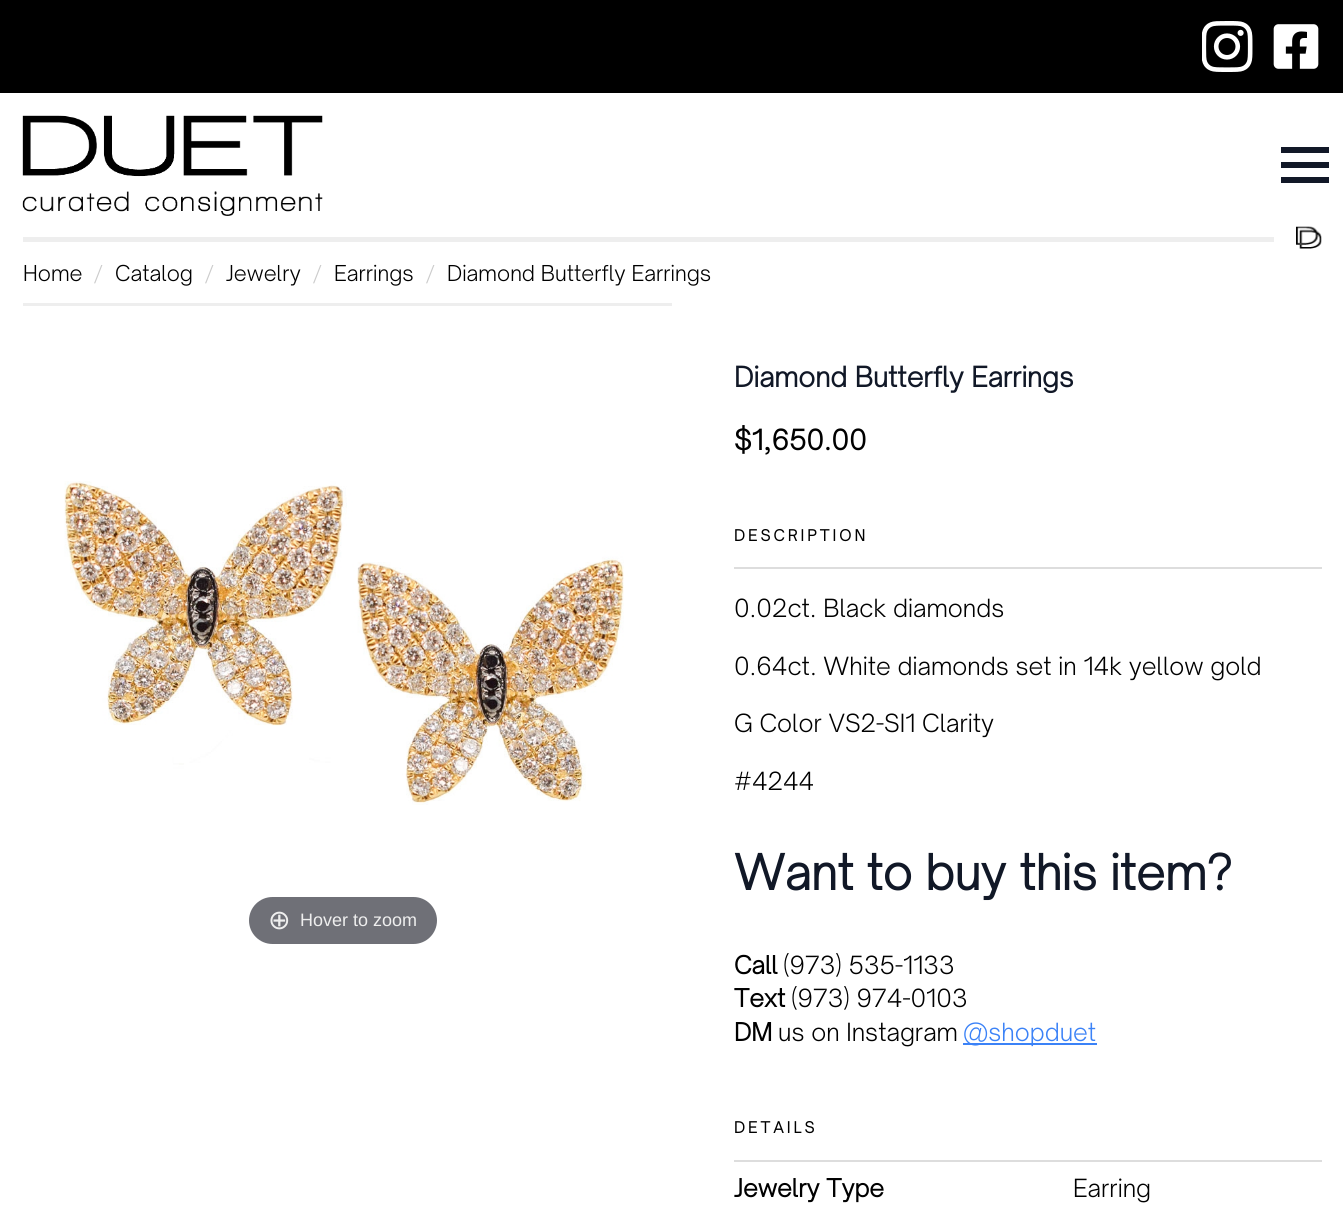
import math
import cairo

surface = cairo.ImageSurface(cairo.FORMAT_RGB24, 1343, 1228)
ctx = cairo.Context(surface)
options = cairo.FontOptions()
options.set_hint_metrics(cairo.HINT_METRICS_OFF)
options.set_hint_style(cairo.HINT_STYLE_NONE)
ctx.set_font_options(options)
ctx.set_miter_limit(4)


def spaced_text(x, y, s, letter, word):
    ctx.move_to(x, y)
    for ch in s:
        ctx.show_text(ch)
        ctx.rel_move_to(letter + word * (ch == ' '), 0)


def round_rect(x, y, w, h, r):
    ctx.new_sub_path()
    for i, (u, v) in enumerate([(x + w - r, y + h - r), (x + r, y + h - r), (x + r, y + r), (x + w - r, y + r)]):
        ctx.arc(u, v, r, i * math.pi / 2, (i + 1) * math.pi / 2)
    ctx.close_path()


def picture(path, x, y, w, h):
    ctx.save()
    ctx.set_source_surface(cairo.ImageSurface.create_from_png(path), x, y)
    ctx.rectangle(x, y, w, h)
    ctx.fill()
    ctx.restore()


ctx.set_source_rgb(1, 1, 1)
ctx.paint()
ctx.set_source_rgb(0, 0, 0)
ctx.rectangle(0, 0, 1343, 93)
ctx.fill()
picture("img1.png", 1202, 21, 51, 51)
picture("img2.png", 1273, 24, 46, 45)
picture("img3.png", 22, 115, 301, 101)
ctx.set_source_rgb(0.067, 0.094, 0.153)
ctx.rectangle(1281, 162, 48, 6)
ctx.fill()
ctx.rectangle(1281, 147, 48, 6)
ctx.fill()
ctx.rectangle(1281, 177, 48, 6)
ctx.fill()
ctx.set_source_rgb(0.933, 0.933, 0.933)
ctx.rectangle(23, 237, 1251, 5)
ctx.fill()
picture("img4.png", 1296, 226, 26, 23)
ctx.select_font_face("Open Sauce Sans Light")
ctx.set_font_size(21)
ctx.set_source_rgb(0, 0, 0)
ctx.move_to(23, 281)
ctx.show_text("Home")
ctx.set_source_rgb(0.8, 0.8, 0.8)
ctx.move_to(94, 281)
ctx.show_text("/")
ctx.set_source_rgb(0, 0, 0)
ctx.move_to(115, 281)
ctx.show_text("Catalog")
ctx.set_source_rgb(0.8, 0.8, 0.8)
ctx.move_to(205, 281)
ctx.show_text("/")
ctx.set_source_rgb(0, 0, 0)
ctx.move_to(226, 281)
ctx.show_text("Jewelry")
ctx.set_source_rgb(0.8, 0.8, 0.8)
ctx.move_to(313, 281)
ctx.show_text("/")
ctx.set_source_rgb(0, 0, 0)
ctx.move_to(334, 281)
ctx.show_text("Earrings")
ctx.set_source_rgb(0.8, 0.8, 0.8)
ctx.move_to(426, 281)
ctx.show_text("/")
ctx.set_source_rgb(0, 0, 0)
ctx.move_to(447, 281)
ctx.show_text("Diamond Butterfly Earrings")
ctx.set_source_rgb(0.933, 0.933, 0.933)
ctx.rectangle(23, 303, 649, 3)
ctx.fill()
picture("img5.png", 64, 481, 560, 324)
ctx.set_source_rgb(0.435, 0.439, 0.467)
round_rect(249, 897, 188, 47, 23.5)
ctx.fill()
ctx.select_font_face("DejaVu Sans")
ctx.set_font_size(27)
ctx.set_source_rgb(0.933, 0.933, 0.933)
ctx.move_to(268, 929)
ctx.show_text("⊕")
ctx.select_font_face("Liberation Sans")
ctx.set_font_size(18)
ctx.move_to(300, 926)
ctx.show_text("Hover to zoom")
ctx.select_font_face("Open Sauce Sans", cairo.FONT_SLANT_NORMAL, cairo.FONT_WEIGHT_BOLD)
ctx.set_font_size(27)
ctx.set_source_rgb(0.067, 0.094, 0.153)
ctx.move_to(734, 387)
ctx.show_text("Diamond Butterfly Earrings")
ctx.set_source_rgb(0, 0, 0)
ctx.move_to(734, 450)
ctx.show_text("$1,650.00")
ctx.set_font_size(15)
spaced_text(734, 541, "DESCRIPTION", 3.25, 0)
ctx.set_source_rgb(0.867, 0.867, 0.867)
ctx.rectangle(734, 567, 588, 2)
ctx.fill()
ctx.select_font_face("Open Sauce Sans Light")
ctx.set_font_size(24)
ctx.set_source_rgb(0, 0, 0)
ctx.move_to(734, 617)
ctx.show_text("0.02ct. Black diamonds")
ctx.move_to(734, 675)
ctx.show_text("0.64ct. White diamonds set in 14k yellow gold")
ctx.move_to(734, 732)
ctx.show_text("G Color VS2-SI1 Clarity")
ctx.move_to(734, 790)
ctx.show_text("#4244")
ctx.select_font_face("Open Sauce Sans", cairo.FONT_SLANT_NORMAL, cairo.FONT_WEIGHT_BOLD)
ctx.set_font_size(46.9)
ctx.set_source_rgb(0.067, 0.094, 0.153)
ctx.move_to(734, 890)
ctx.show_text("Want to buy this item?")
ctx.set_font_size(24)
ctx.set_source_rgb(0, 0, 0)
ctx.move_to(734, 974)
ctx.show_text("Call")
ctx.select_font_face("Open Sauce Sans Light")
ctx.move_to(783, 974)
ctx.show_text("(973) 535-1133")
ctx.select_font_face("Open Sauce Sans", cairo.FONT_SLANT_NORMAL, cairo.FONT_WEIGHT_BOLD)
ctx.move_to(734, 1007)
ctx.show_text("Text")
ctx.select_font_face("Open Sauce Sans Light")
ctx.move_to(791, 1007)
ctx.show_text("(973) 974-0103")
ctx.select_font_face("Open Sauce Sans", cairo.FONT_SLANT_NORMAL, cairo.FONT_WEIGHT_BOLD)
ctx.move_to(734, 1041)
ctx.show_text("DM")
ctx.select_font_face("Open Sauce Sans Light")
ctx.move_to(778, 1041)
ctx.show_text("us on Instagram")
ctx.set_source_rgb(0.231, 0.51, 0.965)
ctx.rectangle(963, 1043, 134, 2)
ctx.fill()
ctx.move_to(963, 1041)
ctx.show_text("@shopduet")
ctx.select_font_face("Open Sauce Sans", cairo.FONT_SLANT_NORMAL, cairo.FONT_WEIGHT_BOLD)
ctx.set_font_size(15)
ctx.set_source_rgb(0, 0, 0)
spaced_text(734, 1133, "DETAILS", 3.25, 0)
ctx.set_source_rgb(0.867, 0.867, 0.867)
ctx.rectangle(734, 1160, 588, 2)
ctx.fill()
ctx.set_font_size(24)
ctx.set_source_rgb(0, 0, 0)
ctx.move_to(734, 1197)
ctx.show_text("Jewelry Type")
ctx.select_font_face("Open Sauce Sans Light")
ctx.move_to(1073, 1197)
ctx.show_text("Earring")
surface.write_to_png("page.png")
